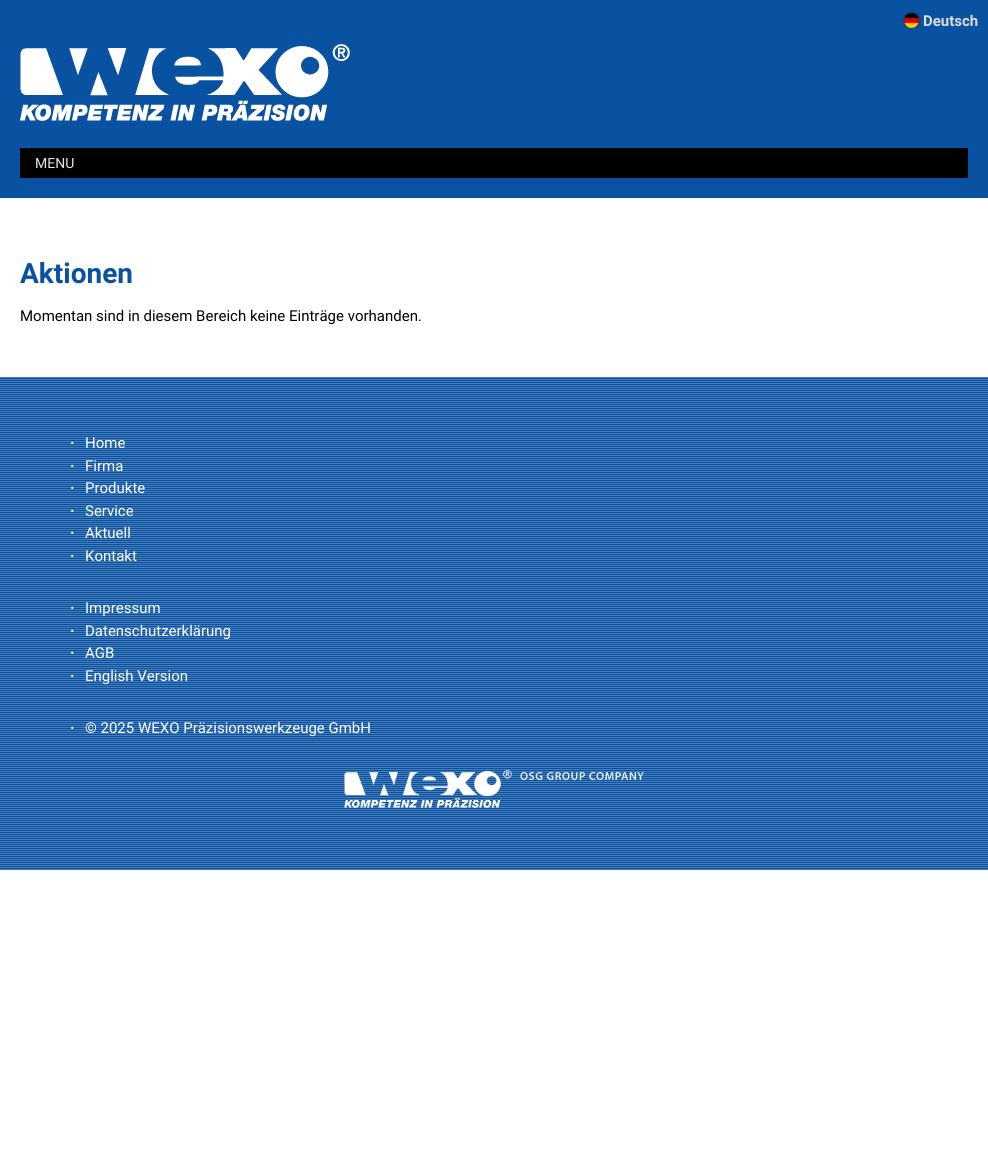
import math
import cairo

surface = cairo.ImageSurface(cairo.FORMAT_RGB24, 988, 1166)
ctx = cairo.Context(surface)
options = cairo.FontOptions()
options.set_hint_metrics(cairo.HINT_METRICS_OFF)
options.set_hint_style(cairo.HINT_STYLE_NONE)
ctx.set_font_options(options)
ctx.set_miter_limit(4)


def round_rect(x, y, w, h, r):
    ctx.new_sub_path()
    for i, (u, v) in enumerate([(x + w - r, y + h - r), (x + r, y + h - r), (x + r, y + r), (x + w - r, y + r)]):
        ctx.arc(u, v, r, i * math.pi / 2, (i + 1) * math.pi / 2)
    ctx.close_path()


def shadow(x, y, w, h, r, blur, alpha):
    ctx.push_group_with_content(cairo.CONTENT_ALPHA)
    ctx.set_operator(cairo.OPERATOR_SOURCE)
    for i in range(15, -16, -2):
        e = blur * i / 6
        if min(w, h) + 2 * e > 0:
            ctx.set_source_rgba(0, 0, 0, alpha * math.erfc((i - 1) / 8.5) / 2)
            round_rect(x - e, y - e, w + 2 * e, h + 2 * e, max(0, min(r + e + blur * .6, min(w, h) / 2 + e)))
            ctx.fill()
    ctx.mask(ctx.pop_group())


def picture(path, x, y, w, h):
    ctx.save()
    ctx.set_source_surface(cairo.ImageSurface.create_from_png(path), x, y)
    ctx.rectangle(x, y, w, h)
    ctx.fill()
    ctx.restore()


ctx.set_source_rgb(1, 1, 1)
ctx.paint()
ctx.set_source_rgb(0.039, 0.318, 0.631)
ctx.rectangle(0, 0, 988, 198)
ctx.fill()
ctx.set_source_rgb(0, 0, 0)
shadow(904, 13, 15, 15, 7.5, 1.5, 0.4)
picture("img1.png", 904, 13, 15, 15)
ctx.select_font_face("Roboto", cairo.FONT_SLANT_NORMAL, cairo.FONT_WEIGHT_BOLD)
ctx.set_font_size(15)
ctx.set_source_rgb(0.867, 0.867, 0.867)
ctx.move_to(923, 26)
ctx.show_text("Deutsch")
picture("img2.png", 20, 44, 330, 77)
ctx.set_source_rgb(0, 0, 0)
ctx.rectangle(20, 148, 948, 30)
ctx.fill()
ctx.select_font_face("Roboto")
ctx.set_font_size(14)
ctx.set_source_rgb(0.902, 0.902, 0.902)
ctx.move_to(35, 168)
ctx.show_text("MENU")
ctx.select_font_face("Roboto", cairo.FONT_SLANT_NORMAL, cairo.FONT_WEIGHT_BOLD)
ctx.set_font_size(28)
ctx.set_source_rgb(0.039, 0.318, 0.631)
ctx.move_to(20, 283)
ctx.show_text("Aktionen")
ctx.select_font_face("Roboto")
ctx.set_font_size(15)
ctx.set_source_rgb(0, 0, 0)
ctx.move_to(20, 321)
ctx.show_text("Momentan sind in diesem Bereich keine Einträge vorhanden.")
picture("img3.png", 0, 377, 988, 493)
ctx.select_font_face("Roboto", cairo.FONT_SLANT_NORMAL, cairo.FONT_WEIGHT_BOLD)
ctx.set_source_rgb(1, 1, 1)
ctx.move_to(70, 448)
ctx.show_text("·")
ctx.select_font_face("Roboto")
ctx.move_to(85, 448)
ctx.show_text("Home")
ctx.select_font_face("Roboto", cairo.FONT_SLANT_NORMAL, cairo.FONT_WEIGHT_BOLD)
ctx.move_to(70, 471)
ctx.show_text("·")
ctx.select_font_face("Roboto")
ctx.move_to(85, 471)
ctx.show_text("Firma")
ctx.select_font_face("Roboto", cairo.FONT_SLANT_NORMAL, cairo.FONT_WEIGHT_BOLD)
ctx.move_to(70, 493)
ctx.show_text("·")
ctx.select_font_face("Roboto")
ctx.move_to(85, 493)
ctx.show_text("Produkte")
ctx.select_font_face("Roboto", cairo.FONT_SLANT_NORMAL, cairo.FONT_WEIGHT_BOLD)
ctx.move_to(70, 516)
ctx.show_text("·")
ctx.select_font_face("Roboto")
ctx.move_to(85, 516)
ctx.show_text("Service")
ctx.select_font_face("Roboto", cairo.FONT_SLANT_NORMAL, cairo.FONT_WEIGHT_BOLD)
ctx.move_to(70, 538)
ctx.show_text("·")
ctx.select_font_face("Roboto")
ctx.move_to(85, 538)
ctx.show_text("Aktuell")
ctx.select_font_face("Roboto", cairo.FONT_SLANT_NORMAL, cairo.FONT_WEIGHT_BOLD)
ctx.move_to(70, 561)
ctx.show_text("·")
ctx.select_font_face("Roboto")
ctx.move_to(85, 561)
ctx.show_text("Kontakt")
ctx.select_font_face("Roboto", cairo.FONT_SLANT_NORMAL, cairo.FONT_WEIGHT_BOLD)
ctx.move_to(70, 613)
ctx.show_text("·")
ctx.select_font_face("Roboto")
ctx.move_to(85, 613)
ctx.show_text("Impressum")
ctx.select_font_face("Roboto", cairo.FONT_SLANT_NORMAL, cairo.FONT_WEIGHT_BOLD)
ctx.move_to(70, 636)
ctx.show_text("·")
ctx.select_font_face("Roboto")
ctx.move_to(85, 636)
ctx.show_text("Datenschutzerklärung")
ctx.select_font_face("Roboto", cairo.FONT_SLANT_NORMAL, cairo.FONT_WEIGHT_BOLD)
ctx.move_to(70, 658)
ctx.show_text("·")
ctx.select_font_face("Roboto")
ctx.move_to(85, 658)
ctx.show_text("AGB")
ctx.select_font_face("Roboto", cairo.FONT_SLANT_NORMAL, cairo.FONT_WEIGHT_BOLD)
ctx.move_to(70, 681)
ctx.show_text("·")
ctx.select_font_face("Roboto")
ctx.move_to(85, 681)
ctx.show_text("English Version")
ctx.select_font_face("Roboto", cairo.FONT_SLANT_NORMAL, cairo.FONT_WEIGHT_BOLD)
ctx.move_to(70, 733)
ctx.show_text("·")
ctx.select_font_face("Roboto")
ctx.move_to(85, 733)
ctx.show_text("© 2025 WEXO Präzisionswerkzeuge GmbH")
picture("img4.png", 344, 770, 300, 38)
surface.write_to_png("page.png")
